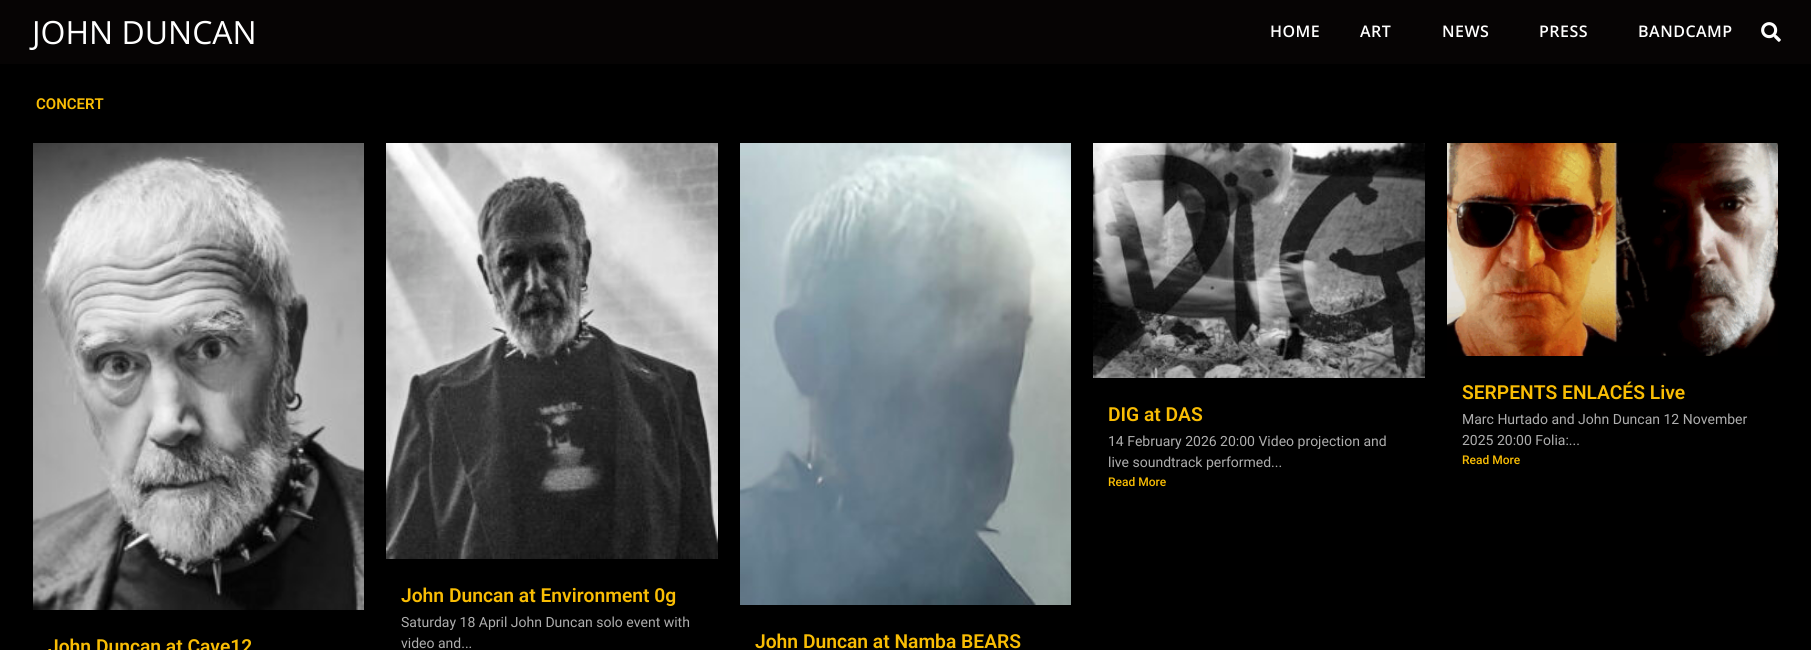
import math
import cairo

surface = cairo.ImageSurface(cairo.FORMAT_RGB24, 1811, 650)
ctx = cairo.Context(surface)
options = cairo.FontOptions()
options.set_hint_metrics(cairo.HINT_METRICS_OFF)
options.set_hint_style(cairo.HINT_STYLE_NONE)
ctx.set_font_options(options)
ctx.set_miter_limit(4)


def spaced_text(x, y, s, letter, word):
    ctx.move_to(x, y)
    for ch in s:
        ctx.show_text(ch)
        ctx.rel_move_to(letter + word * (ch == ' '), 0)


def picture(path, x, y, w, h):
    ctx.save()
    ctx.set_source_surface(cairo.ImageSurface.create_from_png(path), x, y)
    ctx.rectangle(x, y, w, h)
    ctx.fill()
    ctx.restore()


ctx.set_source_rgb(0, 0, 0)
ctx.paint()
ctx.set_source_rgb(0.024, 0.016, 0.016)
ctx.rectangle(0, 0, 1811, 64)
ctx.fill()
ctx.select_font_face("Open Sans")
ctx.set_font_size(32)
ctx.set_source_rgb(1, 1, 1)
ctx.move_to(32, 44)
ctx.show_text("JOHN DUNCAN")
ctx.select_font_face("Open Sans SemiBold")
ctx.set_font_size(16)
spaced_text(1270, 37, "HOME", 0.5, 0)
spaced_text(1360, 37, "ART", 0.5, 0)
spaced_text(1442, 37, "NEWS", 0.5, 0)
spaced_text(1539, 37, "PRESS", 0.5, 0)
spaced_text(1638, 37, "BANDCAMP", 0.5, 0)
picture("img1.png", 1761, 22, 20, 20)
ctx.select_font_face("Roboto SemiBold")
ctx.set_font_size(15)
ctx.set_source_rgb(0.976, 0.741, 0.016)
ctx.move_to(36, 109)
ctx.show_text("CONCERT")
picture("img2.png", 1093, 143, 332, 235)
ctx.set_font_size(19.25)
ctx.move_to(1108, 421)
ctx.show_text("DIG at DAS")
ctx.select_font_face("Roboto")
ctx.set_font_size(14)
ctx.set_source_rgb(0.682, 0.682, 0.682)
ctx.move_to(1108, 446)
ctx.show_text("14 February 2026 20:00 Video projection and")
ctx.move_to(1108, 467)
ctx.show_text("live soundtrack performed...")
ctx.select_font_face("Roboto Medium")
ctx.set_font_size(12)
ctx.set_source_rgb(0.976, 0.741, 0.016)
ctx.move_to(1108, 486)
ctx.show_text("Read More")
picture("img3.png", 1447, 143, 331, 213)
ctx.select_font_face("Roboto SemiBold")
ctx.set_font_size(19.25)
ctx.move_to(1462, 399)
ctx.show_text("SERPENTS ENLACÉS Live")
ctx.select_font_face("Roboto")
ctx.set_font_size(14)
ctx.set_source_rgb(0.682, 0.682, 0.682)
ctx.move_to(1462, 424)
ctx.show_text("Marc Hurtado and John Duncan 12 November")
ctx.move_to(1462, 445)
ctx.show_text("2025 20:00 Folia:...")
ctx.select_font_face("Roboto Medium")
ctx.set_font_size(12)
ctx.set_source_rgb(0.976, 0.741, 0.016)
ctx.move_to(1462, 464)
ctx.show_text("Read More")
picture("img4.png", 33, 143, 331, 467)
ctx.select_font_face("Roboto SemiBold")
ctx.set_font_size(19.25)
ctx.move_to(48, 653)
ctx.show_text("John Duncan at Cave12")
picture("img5.png", 386, 143, 332, 416)
ctx.move_to(401, 602)
ctx.show_text("John Duncan at Environment 0g")
ctx.select_font_face("Roboto")
ctx.set_font_size(14)
ctx.set_source_rgb(0.682, 0.682, 0.682)
ctx.move_to(401, 627)
ctx.show_text("Saturday 18 April John Duncan solo event with")
ctx.move_to(401, 648)
ctx.show_text("video and...")
picture("img6.png", 740, 143, 331, 462)
ctx.select_font_face("Roboto SemiBold")
ctx.set_font_size(19.25)
ctx.set_source_rgb(0.976, 0.741, 0.016)
ctx.move_to(755, 648)
ctx.show_text("John Duncan at Namba BEARS")
surface.write_to_png("page.png")
